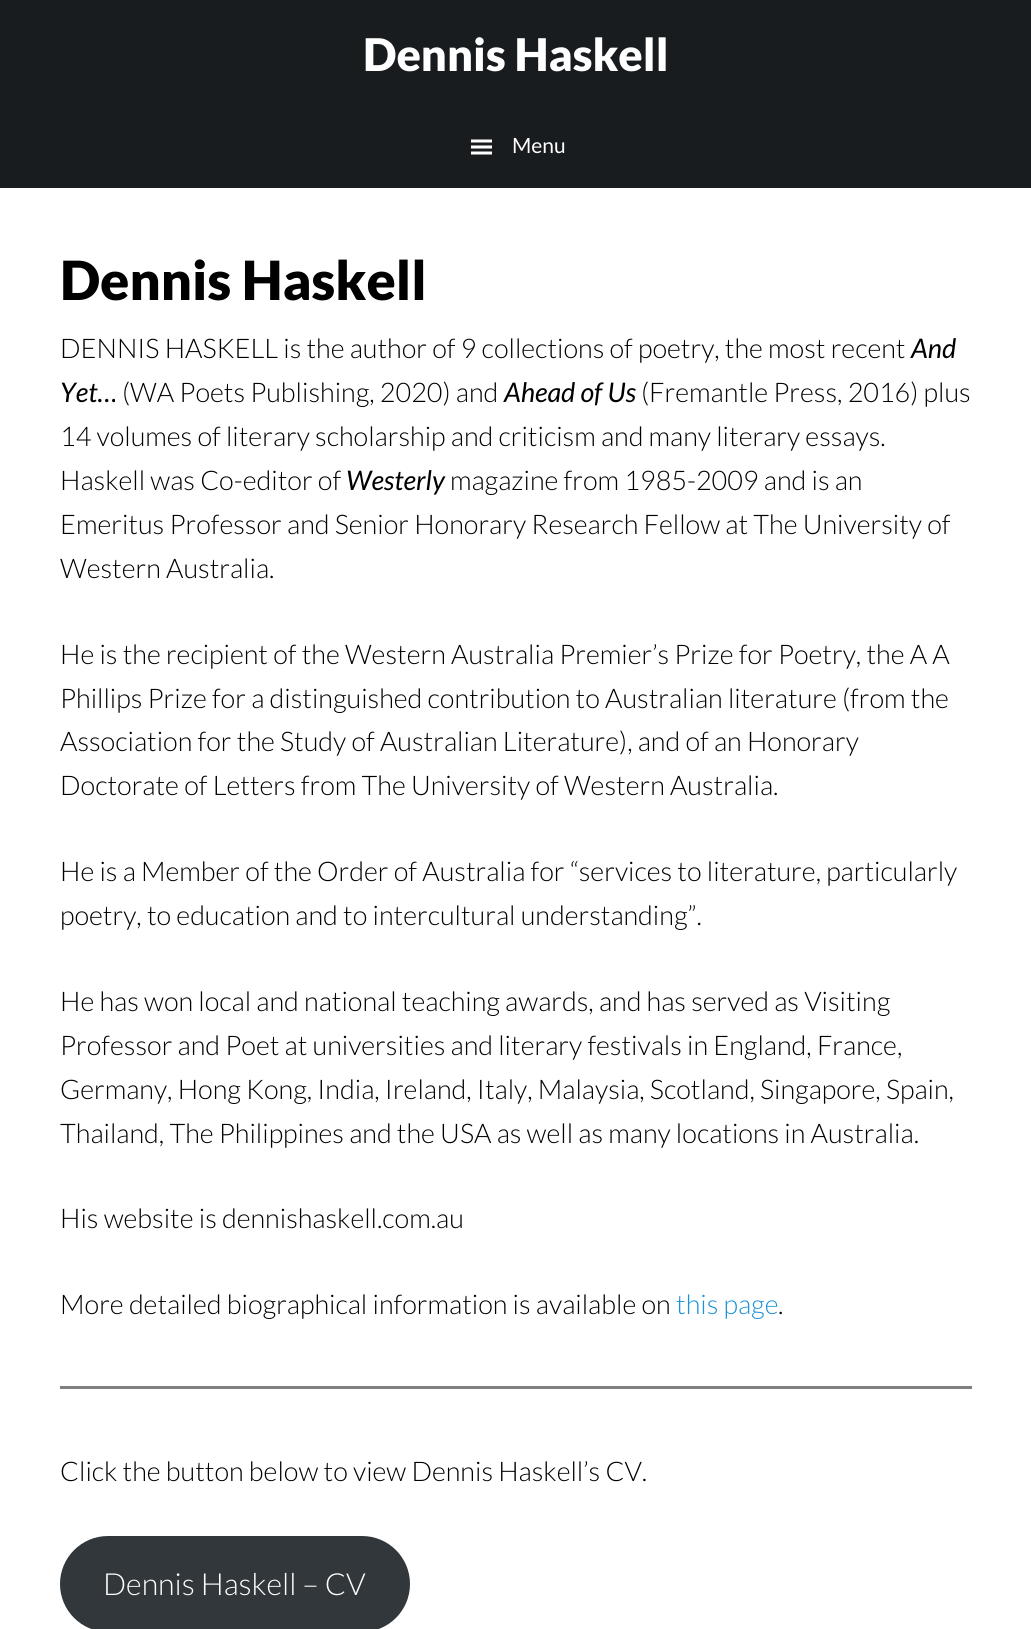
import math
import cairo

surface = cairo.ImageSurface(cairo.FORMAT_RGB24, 1031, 1629)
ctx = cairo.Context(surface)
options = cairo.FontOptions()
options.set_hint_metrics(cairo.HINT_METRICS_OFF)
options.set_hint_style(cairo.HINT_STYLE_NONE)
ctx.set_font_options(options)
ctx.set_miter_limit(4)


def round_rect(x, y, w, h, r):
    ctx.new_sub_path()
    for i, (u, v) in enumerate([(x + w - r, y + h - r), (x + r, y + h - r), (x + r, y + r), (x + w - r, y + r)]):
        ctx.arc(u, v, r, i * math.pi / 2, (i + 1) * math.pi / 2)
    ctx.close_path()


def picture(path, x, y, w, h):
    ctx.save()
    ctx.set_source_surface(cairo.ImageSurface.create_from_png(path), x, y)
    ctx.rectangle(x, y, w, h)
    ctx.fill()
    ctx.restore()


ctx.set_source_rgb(0.094, 0.11, 0.118)
ctx.paint()
ctx.select_font_face("Lato Black")
ctx.set_font_size(45)
ctx.set_source_rgb(1, 1, 1)
ctx.move_to(363, 71)
ctx.show_text("Dennis Haskell")
picture("img1.png", 471, 139, 21, 16)
ctx.select_font_face("Lato")
ctx.set_font_size(21)
ctx.move_to(512, 153)
ctx.show_text("Menu")
ctx.rectangle(0, 188, 1031, 1441)
ctx.fill()
ctx.select_font_face("Lato Black")
ctx.set_font_size(54)
ctx.set_source_rgb(0, 0, 0)
ctx.move_to(60, 300)
ctx.show_text("Dennis Haskell")
ctx.select_font_face("Lato Light")
ctx.set_font_size(27)
ctx.move_to(60, 358)
ctx.show_text("DENNIS HASKELL is the author of 9 collections of poetry, the most recent")
ctx.select_font_face("Lato", cairo.FONT_SLANT_ITALIC)
ctx.move_to(911, 358)
ctx.show_text("And")
ctx.move_to(60, 402)
ctx.show_text("Yet…")
ctx.select_font_face("Lato Light")
ctx.move_to(122, 402)
ctx.show_text("(WA Poets Publishing, 2020) and")
ctx.select_font_face("Lato", cairo.FONT_SLANT_ITALIC)
ctx.move_to(504, 402)
ctx.show_text("Ahead of Us")
ctx.select_font_face("Lato Light")
ctx.move_to(641, 402)
ctx.show_text("(Fremantle Press, 2016) plus")
ctx.move_to(60, 446)
ctx.show_text("14 volumes of literary scholarship and criticism and many literary essays.")
ctx.move_to(60, 490)
ctx.show_text("Haskell was Co-editor of")
ctx.select_font_face("Lato", cairo.FONT_SLANT_ITALIC)
ctx.move_to(346, 490)
ctx.show_text("Westerly")
ctx.select_font_face("Lato Light")
ctx.move_to(450, 490)
ctx.show_text("magazine from 1985-2009 and is an")
ctx.move_to(60, 534)
ctx.show_text("Emeritus Professor and Senior Honorary Research Fellow at The University of")
ctx.move_to(60, 578)
ctx.show_text("Western Australia.")
ctx.move_to(60, 664)
ctx.show_text("He is the recipient of the Western Australia Premier’s Prize for Poetry, the A A")
ctx.move_to(60, 708)
ctx.show_text("Phillips Prize for a distinguished contribution to Australian literature (from the")
ctx.move_to(60, 751)
ctx.show_text("Association for the Study of Australian Literature), and of an Honorary")
ctx.move_to(60, 795)
ctx.show_text("Doctorate of Letters from The University of Western Australia.")
ctx.move_to(60, 881)
ctx.show_text("He is a Member of the Order of Australia for “services to literature, particularly")
ctx.move_to(60, 925)
ctx.show_text("poetry, to education and to intercultural understanding”.")
ctx.move_to(60, 1011)
ctx.show_text("He has won local and national teaching awards, and has served as Visiting")
ctx.move_to(60, 1055)
ctx.show_text("Professor and Poet at universities and literary festivals in England, France,")
ctx.move_to(60, 1099)
ctx.show_text("Germany, Hong Kong, India, Ireland, Italy, Malaysia, Scotland, Singapore, Spain,")
ctx.move_to(60, 1143)
ctx.show_text("Thailand, The Philippines and the USA as well as many locations in Australia.")
ctx.move_to(60, 1228)
ctx.show_text("His website is dennishaskell.com.au")
ctx.move_to(60, 1314)
ctx.show_text("More detailed biographical information is available on")
ctx.set_source_rgb(0.11, 0.565, 0.847)
ctx.move_to(676, 1314)
ctx.show_text("this page")
ctx.set_source_rgb(0, 0, 0)
ctx.move_to(778, 1314)
ctx.show_text(".")
ctx.set_source_rgb(0.502, 0.502, 0.502)
ctx.rectangle(60, 1386, 912, 3)
ctx.fill()
ctx.set_source_rgb(0, 0, 0)
ctx.move_to(60, 1481)
ctx.show_text("Click the button below to view Dennis Haskell’s CV.")
ctx.set_source_rgb(0.196, 0.216, 0.235)
round_rect(60, 1536, 350, 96, 48)
ctx.fill()
ctx.set_font_size(30.4)
ctx.set_source_rgb(1, 1, 1)
ctx.move_to(103, 1595)
ctx.show_text("Dennis Haskell – CV")
surface.write_to_png("page.png")
